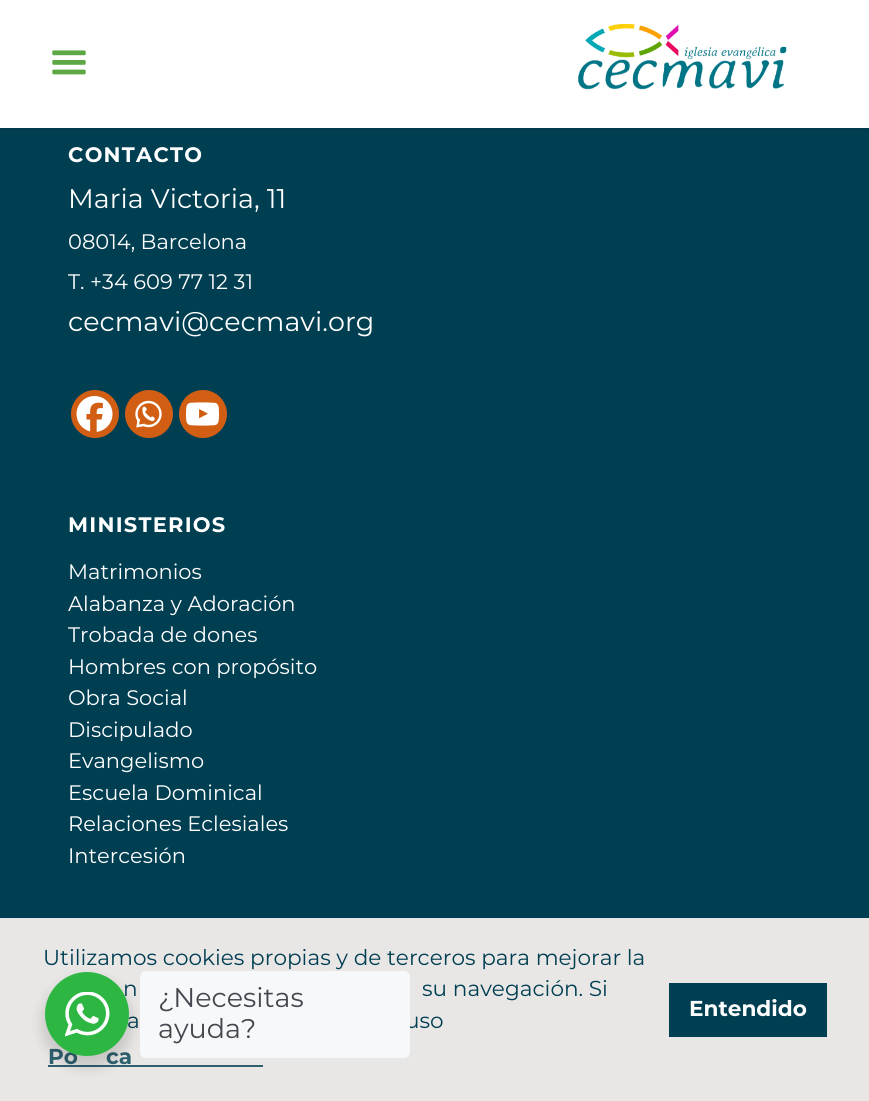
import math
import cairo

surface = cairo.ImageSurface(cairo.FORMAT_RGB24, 869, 1101)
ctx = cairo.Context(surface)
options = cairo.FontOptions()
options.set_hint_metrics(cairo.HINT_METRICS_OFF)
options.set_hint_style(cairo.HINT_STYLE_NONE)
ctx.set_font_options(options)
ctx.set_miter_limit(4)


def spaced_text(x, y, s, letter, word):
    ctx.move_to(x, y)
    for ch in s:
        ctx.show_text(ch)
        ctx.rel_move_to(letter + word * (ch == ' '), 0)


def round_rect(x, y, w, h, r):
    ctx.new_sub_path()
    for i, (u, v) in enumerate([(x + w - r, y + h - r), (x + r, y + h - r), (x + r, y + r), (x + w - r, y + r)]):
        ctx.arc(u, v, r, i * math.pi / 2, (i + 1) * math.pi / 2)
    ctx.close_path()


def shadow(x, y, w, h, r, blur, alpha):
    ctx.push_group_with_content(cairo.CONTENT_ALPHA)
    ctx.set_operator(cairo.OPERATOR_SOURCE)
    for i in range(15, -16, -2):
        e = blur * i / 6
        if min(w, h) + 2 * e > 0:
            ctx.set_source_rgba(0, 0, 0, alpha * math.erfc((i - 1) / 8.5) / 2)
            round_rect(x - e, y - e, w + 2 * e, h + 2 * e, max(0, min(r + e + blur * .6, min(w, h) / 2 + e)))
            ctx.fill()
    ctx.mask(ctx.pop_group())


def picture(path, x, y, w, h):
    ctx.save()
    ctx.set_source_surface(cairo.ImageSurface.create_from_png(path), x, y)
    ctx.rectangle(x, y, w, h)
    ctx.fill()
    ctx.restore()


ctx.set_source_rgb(0, 0.243, 0.322)
ctx.paint()
ctx.set_source_rgb(0, 0, 0)
shadow(0, 0, 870, 128, 0, 1.5, 0.3)
ctx.set_source_rgb(1, 1, 1)
ctx.rectangle(0, 0, 869, 128)
ctx.fill()
picture("img1.png", 52, 50, 34, 25)
picture("img2.png", 578, 24, 209, 66)
ctx.select_font_face("Montserrat", cairo.FONT_SLANT_NORMAL, cairo.FONT_WEIGHT_BOLD)
ctx.set_font_size(21)
spaced_text(68, 162, "CONTACTO", 1.25, 0)
ctx.select_font_face("Montserrat")
ctx.set_font_size(27)
ctx.move_to(68, 208)
ctx.show_text("Maria Victoria, 11")
ctx.set_font_size(21)
ctx.move_to(68, 249)
ctx.show_text("08014, Barcelona")
ctx.move_to(68, 289)
ctx.show_text("T. +34 609 77 12 31")
ctx.set_font_size(27)
ctx.move_to(68, 331)
ctx.show_text("cecmavi@cecmavi.org")
ctx.set_source_rgb(0.82, 0.369, 0.078)
ctx.new_path()
ctx.arc(95, 414, 24, 0, 2 * math.pi)
ctx.fill()
picture("img3.png", 76, 396, 37, 36)
ctx.arc(149, 414, 24, 0, 2 * math.pi)
ctx.fill()
picture("img4.png", 135, 400, 27, 28)
ctx.arc(203, 414, 24, 0, 2 * math.pi)
ctx.fill()
picture("img5.png", 186, 402, 33, 24)
ctx.select_font_face("Montserrat", cairo.FONT_SLANT_NORMAL, cairo.FONT_WEIGHT_BOLD)
ctx.set_font_size(21)
ctx.set_source_rgb(1, 1, 1)
spaced_text(68, 532, "MINISTERIOS", 1.25, 0)
ctx.select_font_face("Montserrat")
ctx.move_to(68, 579)
ctx.show_text("Matrimonios")
ctx.move_to(68, 611)
ctx.show_text("Alabanza y Adoración")
ctx.move_to(68, 642)
ctx.show_text("Trobada de dones")
ctx.move_to(68, 674)
ctx.show_text("Hombres con propósito")
ctx.move_to(68, 705)
ctx.show_text("Obra Social")
ctx.move_to(68, 737)
ctx.show_text("Discipulado")
ctx.move_to(68, 768)
ctx.show_text("Evangelismo")
ctx.move_to(68, 800)
ctx.show_text("Escuela Dominical")
ctx.move_to(68, 831)
ctx.show_text("Relaciones Eclesiales")
ctx.move_to(68, 863)
ctx.show_text("Intercesión")
ctx.set_source_rgb(0.914, 0.906, 0.902)
ctx.rectangle(0, 918, 869, 183)
ctx.fill()
ctx.set_font_size(21.6)
ctx.set_source_rgb(0, 0.243, 0.322)
ctx.move_to(43, 965)
ctx.show_text("Utilizamos cookies propias y de terceros para mejorar la")
ctx.move_to(123, 996)
ctx.show_text("n")
ctx.move_to(422, 996)
ctx.show_text("su navegación. Si")
ctx.move_to(127, 1028)
ctx.show_text("a")
ctx.move_to(405, 1028)
ctx.show_text("uso")
ctx.select_font_face("Montserrat", cairo.FONT_SLANT_NORMAL, cairo.FONT_WEIGHT_BOLD)
ctx.set_source_rgb(0.184, 0.376, 0.439)
ctx.move_to(48, 1064)
ctx.show_text("Po")
ctx.move_to(106, 1064)
ctx.show_text("ca")
ctx.rectangle(48, 1065, 215, 2)
ctx.fill()
ctx.set_source_rgb(0, 0.243, 0.322)
ctx.rectangle(669, 983, 158, 54)
ctx.fill()
ctx.set_source_rgb(1, 1, 1)
ctx.move_to(689, 1016)
ctx.show_text("Entendido")
ctx.set_source_rgb(0, 0, 0)
shadow(42, 978, 90, 90, 45, 6, 0.14)
ctx.set_source_rgb(0.176, 0.718, 0.259)
ctx.arc(87, 1014, 42, 0, 2 * math.pi)
ctx.fill()
picture("img6.png", 65, 992, 45, 45)
ctx.set_source_rgb(0.961, 0.969, 0.976)
round_rect(140, 971, 270, 87, 6)
ctx.fill()
ctx.select_font_face("Montserrat")
ctx.set_font_size(27)
ctx.set_source_rgb(0.263, 0.278, 0.306)
ctx.move_to(158, 1007)
ctx.show_text("¿Necesitas")
ctx.move_to(158, 1038)
ctx.show_text("ayuda?")
surface.write_to_png("page.png")
